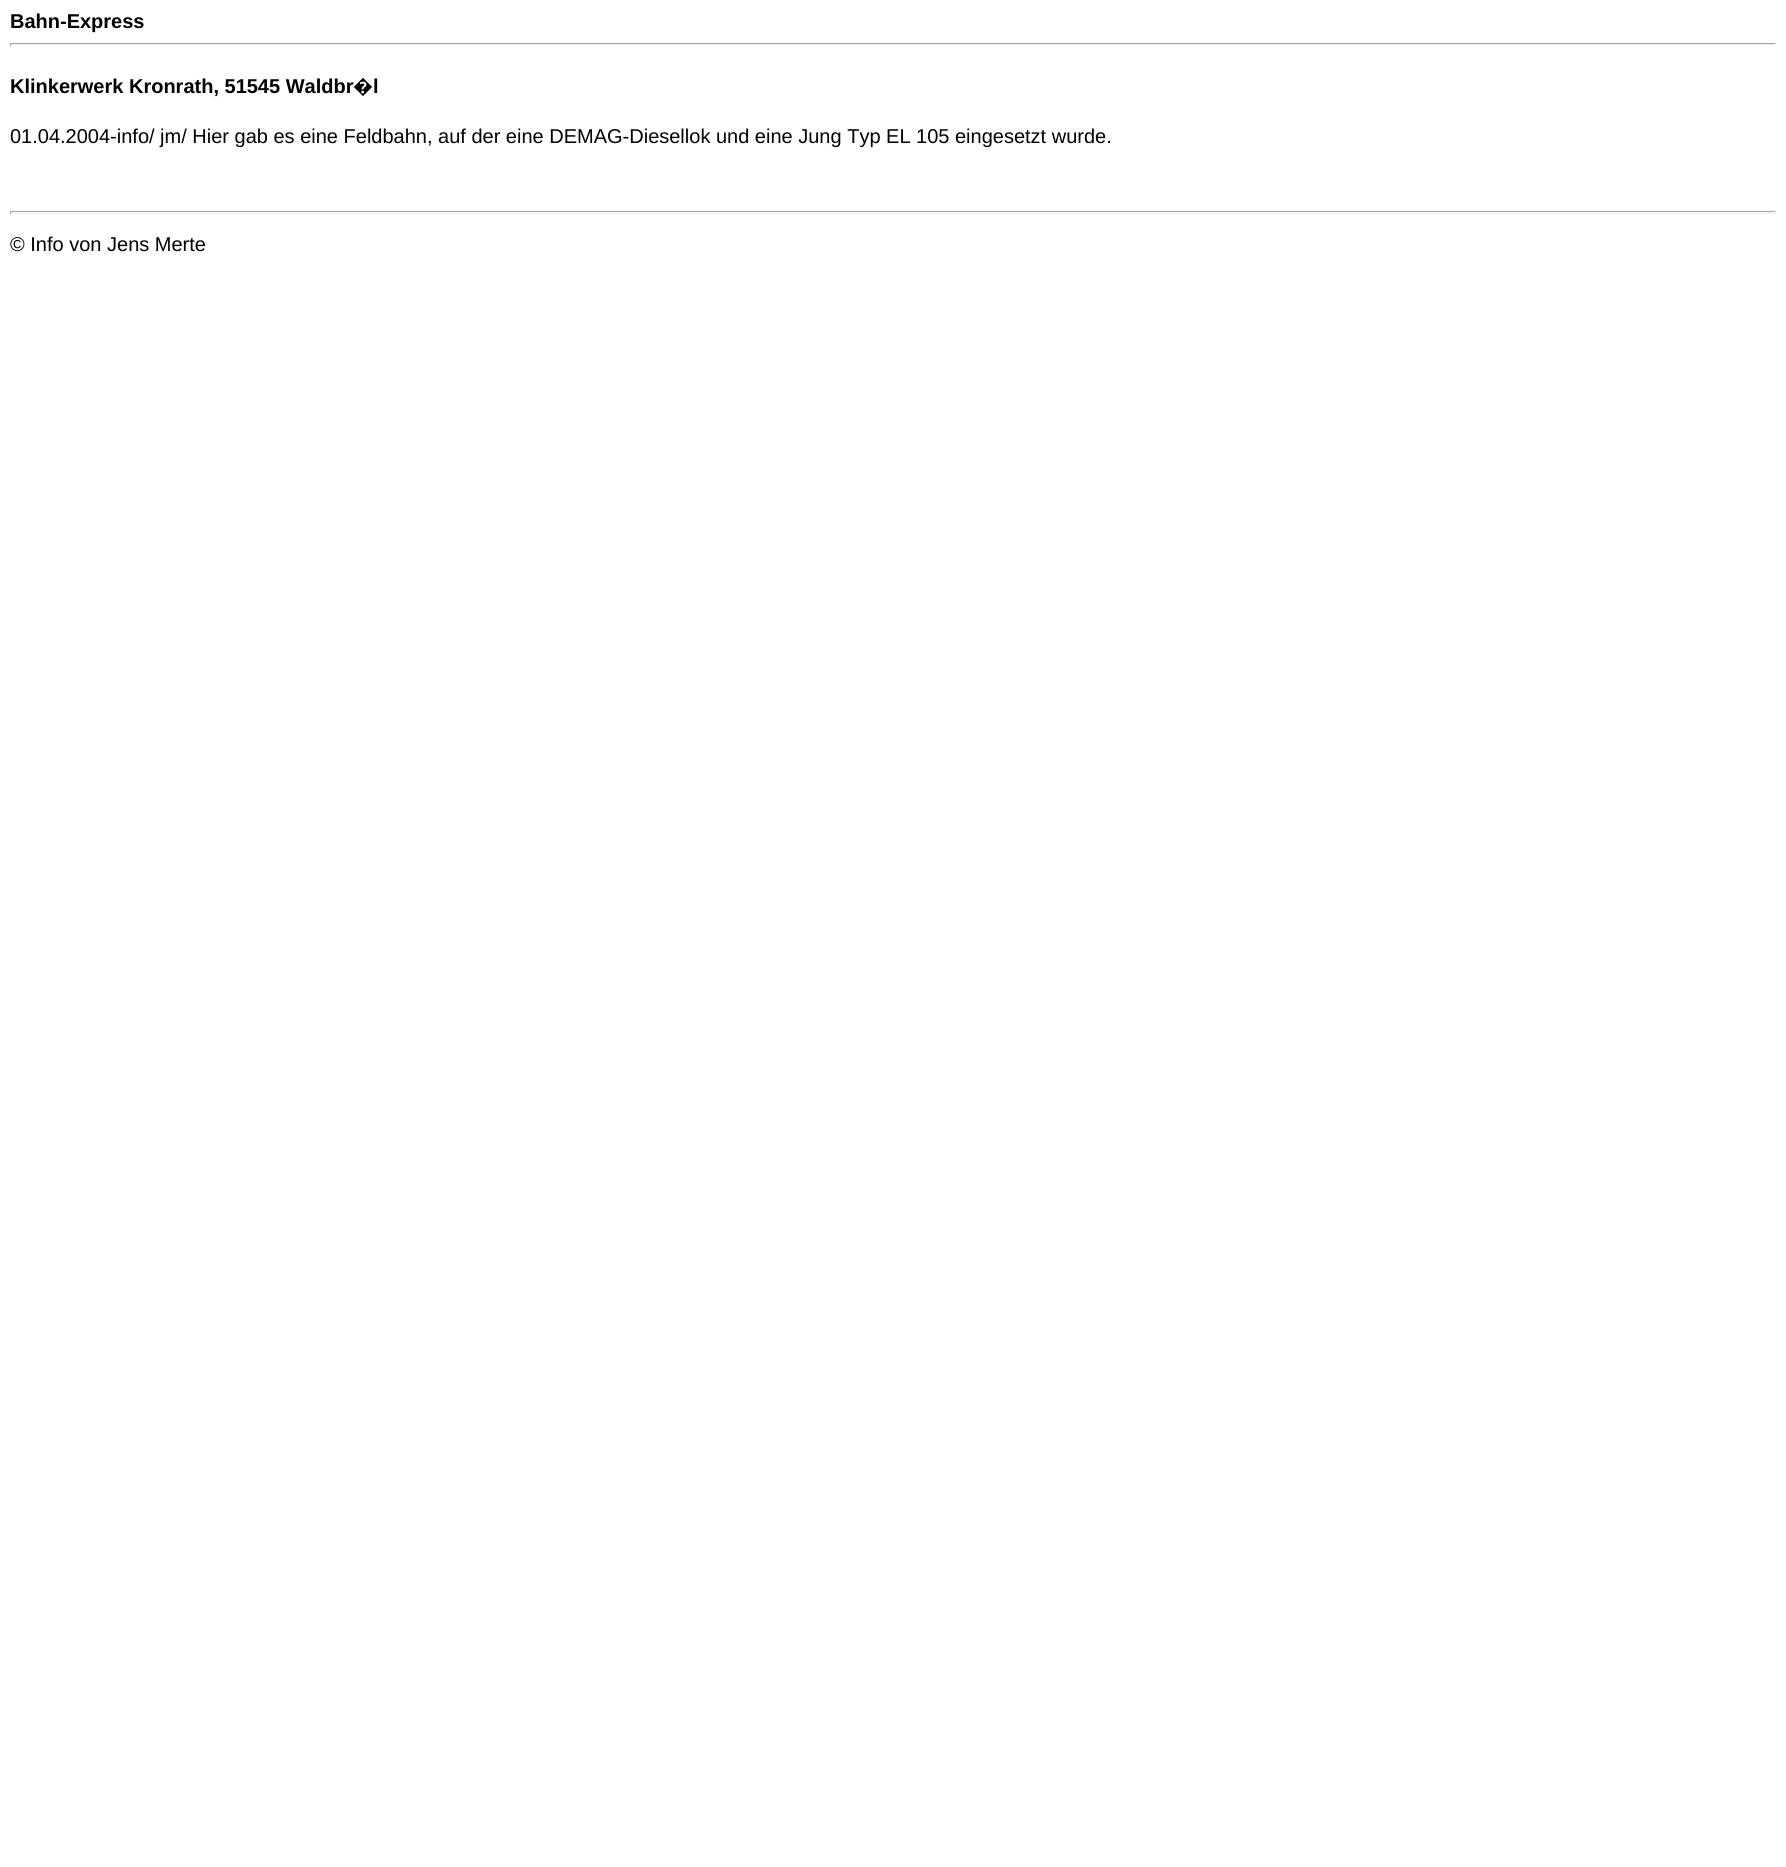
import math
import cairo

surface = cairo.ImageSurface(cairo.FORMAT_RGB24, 1786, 1867)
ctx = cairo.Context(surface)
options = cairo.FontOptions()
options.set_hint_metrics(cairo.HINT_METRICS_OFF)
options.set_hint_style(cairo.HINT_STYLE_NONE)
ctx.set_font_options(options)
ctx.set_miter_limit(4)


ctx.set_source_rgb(1, 1, 1)
ctx.paint()
ctx.select_font_face("Liberation Sans", cairo.FONT_SLANT_NORMAL, cairo.FONT_WEIGHT_BOLD)
ctx.set_font_size(20)
ctx.set_source_rgb(0, 0, 0)
ctx.move_to(10, 28)
ctx.show_text("Bahn-Express")
ctx.set_source_rgb(0.624, 0.624, 0.624)
ctx.rectangle(10, 43, 1766, 1)
ctx.fill()
ctx.set_source_rgb(0.933, 0.933, 0.933)
ctx.rectangle(1775, 43, 1, 3)
ctx.fill()
ctx.rectangle(10, 44, 1766, 1)
ctx.fill()
ctx.set_source_rgb(0.624, 0.624, 0.624)
ctx.rectangle(10, 43, 1, 3)
ctx.fill()
ctx.set_source_rgb(0, 0, 0)
ctx.move_to(10, 93)
ctx.show_text("Klinkerwerk Kronrath, 51545 Waldbr")
ctx.select_font_face("Noto Sans", cairo.FONT_SLANT_NORMAL, cairo.FONT_WEIGHT_BOLD)
ctx.move_to(353, 93)
ctx.show_text("�")
ctx.select_font_face("Liberation Sans", cairo.FONT_SLANT_NORMAL, cairo.FONT_WEIGHT_BOLD)
ctx.move_to(373, 93)
ctx.show_text("l")
ctx.select_font_face("Liberation Sans")
ctx.move_to(10, 143)
ctx.show_text("01.04.2004-info/ jm/ Hier gab es eine Feldbahn, auf der eine DEMAG-Diesellok und eine Jung Typ EL 105 eingesetzt wurde.")
ctx.set_source_rgb(0.624, 0.624, 0.624)
ctx.rectangle(10, 211, 1766, 1)
ctx.fill()
ctx.set_source_rgb(0.933, 0.933, 0.933)
ctx.rectangle(1775, 211, 1, 3)
ctx.fill()
ctx.rectangle(10, 213, 1766, 1)
ctx.fill()
ctx.set_source_rgb(0.624, 0.624, 0.624)
ctx.rectangle(10, 211, 1, 3)
ctx.fill()
ctx.set_source_rgb(0, 0, 0)
ctx.move_to(10, 251)
ctx.show_text("© Info von Jens Merte")
surface.write_to_png("page.png")
